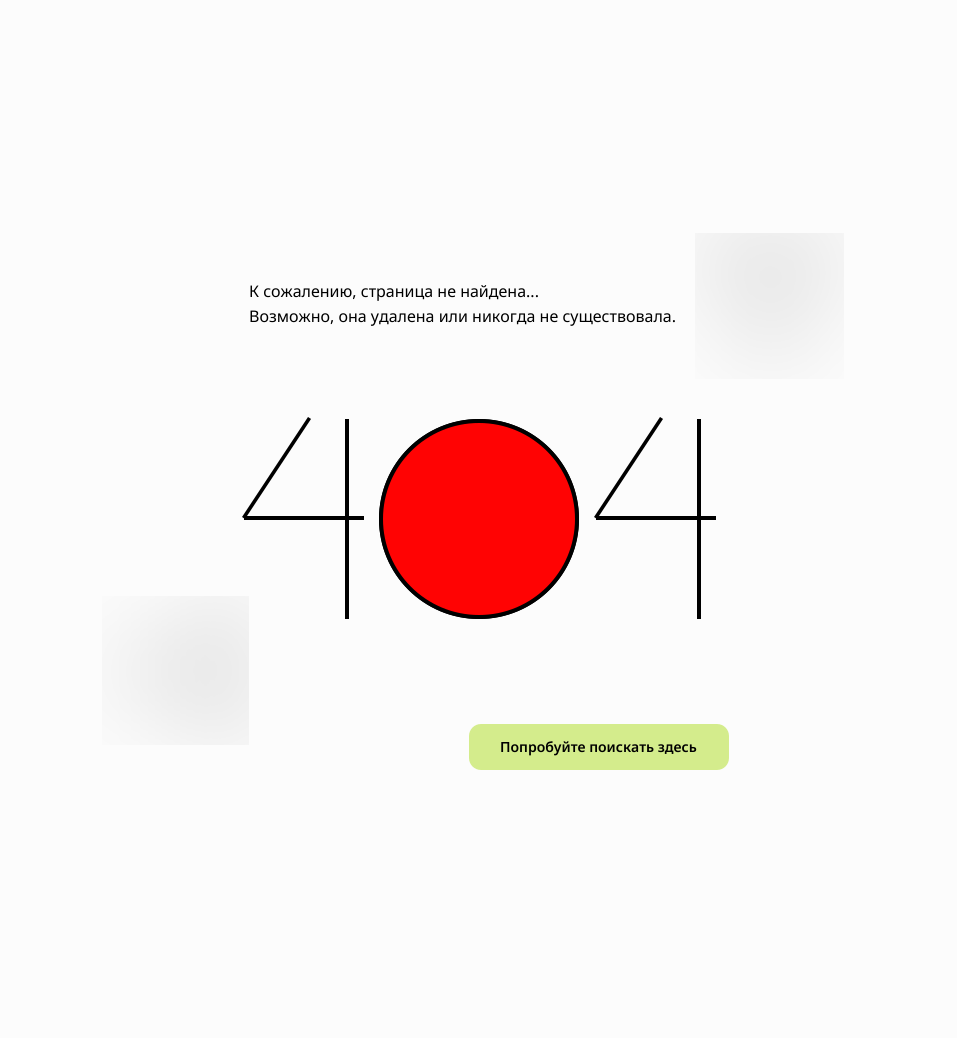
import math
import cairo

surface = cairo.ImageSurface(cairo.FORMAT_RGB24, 957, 1038)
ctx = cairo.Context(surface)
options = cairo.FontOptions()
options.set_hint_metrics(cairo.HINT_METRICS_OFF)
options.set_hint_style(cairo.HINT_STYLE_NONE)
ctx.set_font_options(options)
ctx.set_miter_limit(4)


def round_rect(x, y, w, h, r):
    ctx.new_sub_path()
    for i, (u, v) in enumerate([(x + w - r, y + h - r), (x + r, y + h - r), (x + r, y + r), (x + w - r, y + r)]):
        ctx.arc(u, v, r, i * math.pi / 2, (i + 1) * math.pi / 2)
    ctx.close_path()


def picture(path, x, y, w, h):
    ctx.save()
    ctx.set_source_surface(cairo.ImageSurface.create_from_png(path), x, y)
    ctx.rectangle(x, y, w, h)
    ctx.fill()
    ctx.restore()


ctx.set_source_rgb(0.988, 0.988, 0.988)
ctx.paint()
ctx.select_font_face("Noto Sans")
ctx.set_font_size(16)
ctx.set_source_rgb(0, 0, 0)
ctx.move_to(249, 297)
ctx.show_text("К сожалению, страница не найдена...")
ctx.move_to(249, 322)
ctx.show_text("Возможно, она удалена или никогда не существовала.")
picture("img1.png", 695, 233, 149, 146)
ctx.new_path()
ctx.move_to(308, 417)
ctx.line_to(311, 419)
ctx.line_to(245, 519)
ctx.line_to(242, 517)
ctx.close_path()
ctx.fill()
ctx.rectangle(345, 419, 4, 200)
ctx.fill()
ctx.arc(479, 519, 99, 0, 2 * math.pi)
ctx.stroke()
ctx.new_path()
ctx.move_to(660, 417)
ctx.line_to(663, 419)
ctx.line_to(597, 519)
ctx.line_to(594, 517)
ctx.close_path()
ctx.fill()
ctx.rectangle(244, 516, 120, 4)
ctx.fill()
ctx.set_source_rgb(1, 0.012, 0.012)
ctx.arc(479, 519, 98, 0, 2 * math.pi)
ctx.fill_preserve()
ctx.set_source_rgb(0, 0, 0)
ctx.set_line_width(4)
ctx.stroke()
ctx.rectangle(697, 419, 4, 200)
ctx.fill()
ctx.rectangle(596, 516, 120, 4)
ctx.fill()
picture("img2.png", 102, 596, 147, 149)
ctx.set_source_rgb(0.831, 0.925, 0.549)
round_rect(470, 725, 258, 44, 11)
ctx.fill_preserve()
ctx.set_line_width(2)
ctx.stroke()
ctx.select_font_face("Noto Sans SemiBold")
ctx.set_font_size(14)
ctx.set_source_rgb(0, 0, 0)
ctx.move_to(500, 752)
ctx.show_text("Попробуйте поискать здесь")
surface.write_to_png("page.png")
